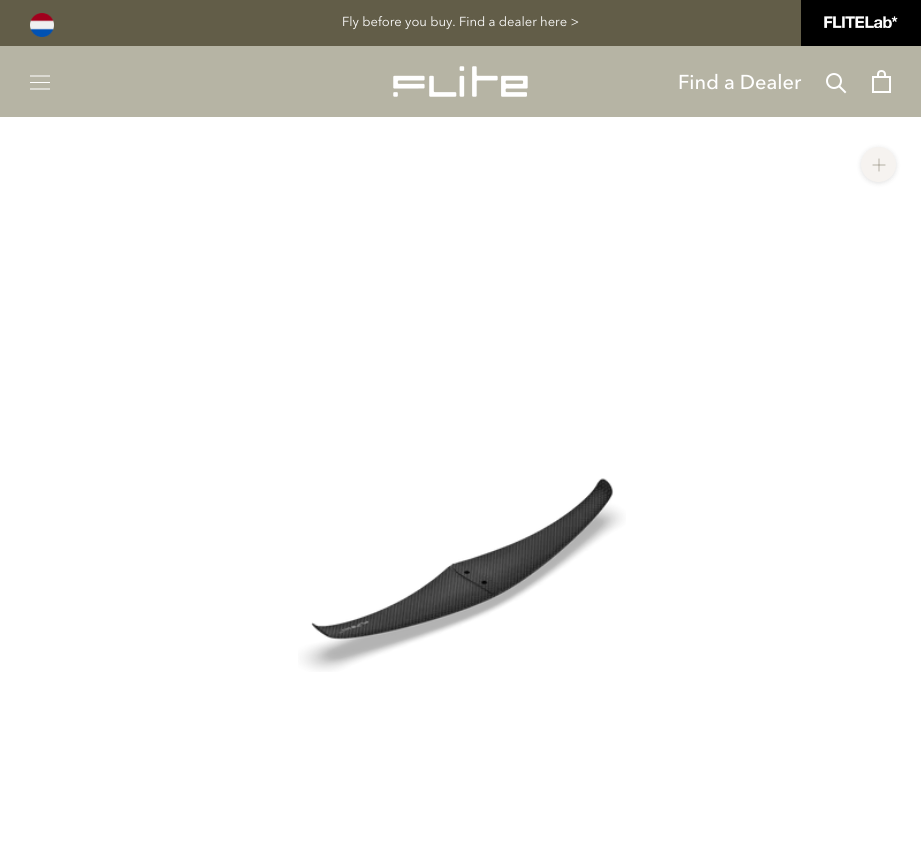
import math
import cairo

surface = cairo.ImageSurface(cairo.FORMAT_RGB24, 921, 863)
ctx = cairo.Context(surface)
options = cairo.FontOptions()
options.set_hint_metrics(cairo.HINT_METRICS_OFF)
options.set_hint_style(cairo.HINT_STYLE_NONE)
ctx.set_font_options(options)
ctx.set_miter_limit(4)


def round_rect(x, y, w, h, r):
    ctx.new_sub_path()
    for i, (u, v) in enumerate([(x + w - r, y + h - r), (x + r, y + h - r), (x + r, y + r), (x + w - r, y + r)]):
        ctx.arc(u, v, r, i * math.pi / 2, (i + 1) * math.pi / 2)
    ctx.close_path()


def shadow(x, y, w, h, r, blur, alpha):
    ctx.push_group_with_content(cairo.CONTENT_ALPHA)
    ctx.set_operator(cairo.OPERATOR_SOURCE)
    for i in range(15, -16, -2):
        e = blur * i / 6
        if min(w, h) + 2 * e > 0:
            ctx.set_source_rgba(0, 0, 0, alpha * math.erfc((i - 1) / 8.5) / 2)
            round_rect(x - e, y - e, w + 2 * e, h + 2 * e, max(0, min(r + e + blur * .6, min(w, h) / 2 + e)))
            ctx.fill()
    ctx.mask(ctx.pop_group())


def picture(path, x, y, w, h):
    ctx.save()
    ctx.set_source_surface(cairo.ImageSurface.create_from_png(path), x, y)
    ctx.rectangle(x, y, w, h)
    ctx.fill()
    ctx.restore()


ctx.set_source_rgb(1, 1, 1)
ctx.paint()
ctx.set_source_rgb(0.714, 0.706, 0.643)
ctx.rectangle(0, 46, 921, 71)
ctx.fill()
ctx.set_source_rgb(0.384, 0.365, 0.282)
ctx.rectangle(0, 0, 801, 46)
ctx.fill()
picture("img1.png", 30, 13, 24, 24)
ctx.select_font_face("Avenir Next")
ctx.set_font_size(13)
ctx.set_source_rgb(1, 1, 1)
ctx.move_to(342, 26)
ctx.show_text("Fly before you buy. Find a dealer here >")
ctx.set_source_rgb(0, 0, 0)
ctx.rectangle(801, 0, 120, 46)
ctx.fill()
picture("img2.png", 824, 16, 74, 12)
picture("img3.png", 30, 75, 20, 15)
picture("img4.png", 393, 66, 135, 31)
ctx.select_font_face("Avenir Next Medium")
ctx.set_font_size(20)
ctx.set_source_rgb(1, 1, 1)
ctx.move_to(678, 89)
ctx.show_text("Find a Dealer")
ctx.new_path()
ctx.move_to(845, 92)
ctx.line_to(839.5, 86.5)
ctx.set_line_cap(cairo.LINE_CAP_SQUARE)
ctx.stroke()
ctx.arc(834, 81, 7, 0, 2 * math.pi)
ctx.set_line_cap(cairo.LINE_CAP_BUTT)
ctx.stroke()
picture("img5.png", 872, 70, 19, 23)
ctx.set_source_rgb(0.212, 0.212, 0.212)
shadow(861, 148, 35, 35, 17.5, 2.5, 0.15)
ctx.set_source_rgb(0.961, 0.953, 0.941)
ctx.arc(878.5, 164.5, 17.5, 0, 2 * math.pi)
ctx.fill()
ctx.new_path()
ctx.move_to(879, 159)
ctx.line_to(879, 171)
ctx.set_source_rgb(0.675, 0.659, 0.612)
ctx.set_line_width(0.9)
ctx.set_line_cap(cairo.LINE_CAP_SQUARE)
ctx.stroke()
ctx.new_path()
ctx.move_to(873, 165)
ctx.line_to(885, 165)
ctx.set_source_rgba(0.384, 0.365, 0.282, 0.5)
ctx.stroke()
picture("img6.png", 298, 478, 328, 194)
surface.write_to_png("page.png")
